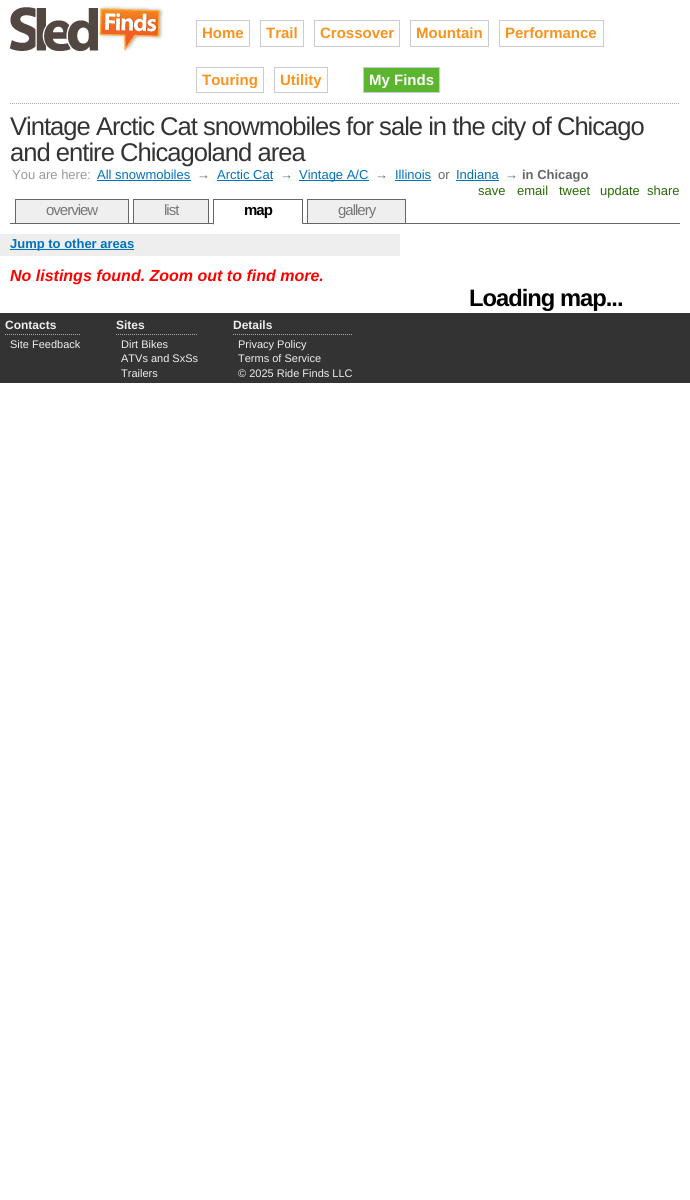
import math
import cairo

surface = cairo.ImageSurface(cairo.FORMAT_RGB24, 690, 1200)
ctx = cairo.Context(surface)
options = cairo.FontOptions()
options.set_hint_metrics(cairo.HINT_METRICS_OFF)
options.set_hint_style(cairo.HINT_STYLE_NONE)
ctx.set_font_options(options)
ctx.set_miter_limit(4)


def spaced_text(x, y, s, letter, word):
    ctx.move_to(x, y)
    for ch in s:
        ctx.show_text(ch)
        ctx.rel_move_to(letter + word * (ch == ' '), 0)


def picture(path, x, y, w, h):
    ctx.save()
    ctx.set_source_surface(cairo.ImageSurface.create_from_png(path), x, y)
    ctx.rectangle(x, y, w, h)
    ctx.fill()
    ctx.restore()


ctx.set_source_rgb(1, 1, 1)
ctx.paint()
picture("img1.png", 10, 6, 154, 45)
ctx.rectangle(196.5, 20.5, 53, 26)
ctx.set_source_rgb(0.8, 0.8, 0.8)
ctx.set_line_width(1)
ctx.stroke()
ctx.select_font_face("Liberation Sans", cairo.FONT_SLANT_NORMAL, cairo.FONT_WEIGHT_BOLD)
ctx.set_font_size(15)
ctx.set_source_rgb(0.969, 0.576, 0.118)
ctx.move_to(202, 38)
ctx.show_text("Home")
ctx.rectangle(260.5, 20.5, 43, 26)
ctx.set_source_rgb(0.8, 0.8, 0.8)
ctx.stroke()
ctx.set_source_rgb(0.969, 0.576, 0.118)
ctx.move_to(266, 38)
ctx.show_text("Trail")
ctx.rectangle(314.5, 20.5, 85, 26)
ctx.set_source_rgb(0.8, 0.8, 0.8)
ctx.stroke()
ctx.set_source_rgb(0.969, 0.576, 0.118)
ctx.move_to(320, 38)
ctx.show_text("Crossover")
ctx.rectangle(410.5, 20.5, 78, 26)
ctx.set_source_rgb(0.8, 0.8, 0.8)
ctx.stroke()
ctx.set_source_rgb(0.969, 0.576, 0.118)
ctx.move_to(416, 38)
ctx.show_text("Mountain")
ctx.rectangle(499.5, 20.5, 104, 26)
ctx.set_source_rgb(0.8, 0.8, 0.8)
ctx.stroke()
ctx.set_source_rgb(0.969, 0.576, 0.118)
ctx.move_to(505, 38)
ctx.show_text("Performance")
ctx.rectangle(196.5, 67.5, 67, 25)
ctx.set_source_rgb(0.8, 0.8, 0.8)
ctx.stroke()
ctx.set_source_rgb(0.969, 0.576, 0.118)
ctx.move_to(202, 85)
ctx.show_text("Touring")
ctx.rectangle(274.5, 67.5, 53, 25)
ctx.set_source_rgb(0.8, 0.8, 0.8)
ctx.stroke()
ctx.set_source_rgb(0.969, 0.576, 0.118)
ctx.move_to(280, 85)
ctx.show_text("Utility")
ctx.set_source_rgb(0.361, 0.71, 0.184)
ctx.rectangle(363.5, 67.5, 76, 25)
ctx.fill_preserve()
ctx.set_source_rgb(0.8, 0.8, 0.8)
ctx.stroke()
ctx.set_source_rgb(1, 1, 1)
ctx.move_to(369, 85)
ctx.show_text("My Finds")
ctx.new_path()
ctx.move_to(10, 103.5)
ctx.line_to(680, 103.5)
ctx.set_source_rgb(0.667, 0.667, 0.667)
ctx.set_dash([1, 1])
ctx.stroke()
ctx.select_font_face("Liberation Sans")
ctx.set_font_size(25.6)
ctx.set_source_rgb(0.2, 0.2, 0.2)
spaced_text(10, 135, "Vintage Arctic Cat snowmobiles for sale in the city of Chicago", -1, 0)
spaced_text(10, 161, "and entire Chicagoland area", -1, 0)
ctx.set_font_size(13)
ctx.set_source_rgb(0.6, 0.6, 0.6)
ctx.move_to(12, 179)
ctx.show_text("You are here:")
ctx.set_source_rgb(0, 0.443, 0.737)
ctx.move_to(97, 179)
ctx.show_text("All snowmobiles")
ctx.rectangle(97, 180, 94, 1)
ctx.fill()
ctx.set_source_rgb(0.4, 0.4, 0.4)
ctx.move_to(197, 179)
ctx.show_text("→")
ctx.set_source_rgb(0, 0.443, 0.737)
ctx.move_to(217, 179)
ctx.show_text("Arctic Cat")
ctx.rectangle(217, 180, 56, 1)
ctx.fill()
ctx.set_source_rgb(0.4, 0.4, 0.4)
ctx.move_to(280, 179)
ctx.show_text("→")
ctx.set_source_rgb(0, 0.443, 0.737)
ctx.rectangle(299, 180, 70, 1)
ctx.fill()
ctx.move_to(299, 179)
ctx.show_text("Vintage A/C")
ctx.set_source_rgb(0.4, 0.4, 0.4)
ctx.move_to(375, 179)
ctx.show_text("→")
ctx.set_source_rgb(0, 0.443, 0.737)
ctx.move_to(395, 179)
ctx.show_text("Illinois")
ctx.rectangle(395, 180, 36, 1)
ctx.fill()
ctx.set_source_rgb(0.4, 0.4, 0.4)
ctx.move_to(438, 179)
ctx.show_text("or")
ctx.set_source_rgb(0, 0.443, 0.737)
ctx.move_to(456, 179)
ctx.show_text("Indiana")
ctx.rectangle(456, 180, 43, 1)
ctx.fill()
ctx.set_source_rgb(0.4, 0.4, 0.4)
ctx.move_to(505, 179)
ctx.show_text("→")
ctx.select_font_face("Liberation Sans", cairo.FONT_SLANT_NORMAL, cairo.FONT_WEIGHT_BOLD)
ctx.move_to(522, 179)
ctx.show_text("in Chicago")
ctx.select_font_face("Liberation Sans")
ctx.set_source_rgb(0.157, 0.42, 0.027)
ctx.move_to(478, 195)
ctx.show_text("save")
ctx.move_to(517, 195)
ctx.show_text("email")
ctx.move_to(559, 195)
ctx.show_text("tweet")
ctx.move_to(600, 195)
ctx.show_text("update")
ctx.move_to(647, 195)
ctx.show_text("share")
ctx.set_source_rgb(0.4, 0.4, 0.4)
ctx.rectangle(10, 223, 670, 1)
ctx.fill()
ctx.set_source_rgb(0.937, 0.937, 0.937)
ctx.rectangle(16, 200, 112, 23)
ctx.fill()
ctx.set_source_rgb(0.4, 0.4, 0.4)
ctx.rectangle(15, 199, 114, 1)
ctx.fill()
ctx.rectangle(128, 199, 1, 24)
ctx.fill()
ctx.rectangle(15, 199, 1, 24)
ctx.fill()
ctx.set_font_size(15)
ctx.set_source_rgb(0.467, 0.467, 0.467)
spaced_text(46, 215, "overview", -1, 0)
ctx.set_source_rgb(0.937, 0.937, 0.937)
ctx.rectangle(134, 200, 74, 23)
ctx.fill()
ctx.set_source_rgb(0.4, 0.4, 0.4)
ctx.rectangle(133, 199, 76, 1)
ctx.fill()
ctx.rectangle(208, 199, 1, 24)
ctx.fill()
ctx.rectangle(133, 199, 1, 24)
ctx.fill()
ctx.set_source_rgb(0.467, 0.467, 0.467)
spaced_text(164, 215, "list", -1, 0)
ctx.set_source_rgb(0.4, 0.4, 0.4)
ctx.rectangle(213, 199, 90, 1)
ctx.fill()
ctx.new_path()
ctx.move_to(303, 199)
ctx.line_to(303, 225)
ctx.line_to(302, 223)
ctx.line_to(302, 200)
ctx.close_path()
ctx.fill()
ctx.set_source_rgb(1, 1, 1)
ctx.new_path()
ctx.move_to(303, 225)
ctx.line_to(213, 225)
ctx.line_to(214, 223)
ctx.line_to(302, 223)
ctx.close_path()
ctx.fill()
ctx.set_source_rgb(0.4, 0.4, 0.4)
ctx.new_path()
ctx.move_to(213, 225)
ctx.line_to(213, 199)
ctx.line_to(214, 200)
ctx.line_to(214, 223)
ctx.close_path()
ctx.fill()
ctx.select_font_face("Liberation Sans", cairo.FONT_SLANT_NORMAL, cairo.FONT_WEIGHT_BOLD)
ctx.set_source_rgb(0, 0, 0)
spaced_text(244, 215, "map", -1, 0)
ctx.set_source_rgb(0.937, 0.937, 0.937)
ctx.rectangle(308, 200, 97, 23)
ctx.fill()
ctx.set_source_rgb(0.4, 0.4, 0.4)
ctx.rectangle(307, 199, 99, 1)
ctx.fill()
ctx.rectangle(405, 199, 1, 24)
ctx.fill()
ctx.rectangle(307, 199, 1, 24)
ctx.fill()
ctx.select_font_face("Liberation Sans")
ctx.set_source_rgb(0.467, 0.467, 0.467)
spaced_text(338, 215, "gallery", -1, 0)
ctx.set_source_rgb(0.933, 0.933, 0.933)
ctx.rectangle(0, 234, 400, 22)
ctx.fill()
ctx.set_source_rgb(0, 0.443, 0.737)
ctx.rectangle(10, 249, 124, 1)
ctx.fill()
ctx.select_font_face("Liberation Sans", cairo.FONT_SLANT_NORMAL, cairo.FONT_WEIGHT_BOLD)
ctx.set_font_size(13)
ctx.move_to(10, 248)
ctx.show_text("Jump to other areas")
ctx.select_font_face("Liberation Sans", cairo.FONT_SLANT_ITALIC, cairo.FONT_WEIGHT_BOLD)
ctx.set_font_size(16)
ctx.set_source_rgb(1, 0, 0)
ctx.move_to(10, 281)
ctx.show_text("No listings found. Zoom out to find more.")
ctx.select_font_face("Liberation Sans", cairo.FONT_SLANT_NORMAL, cairo.FONT_WEIGHT_BOLD)
ctx.set_font_size(23.75)
ctx.set_source_rgb(0, 0, 0)
spaced_text(469, 306, "Loading map...", -1, 0)
ctx.set_source_rgb(0.2, 0.2, 0.2)
ctx.rectangle(0, 313, 690, 70)
ctx.fill()
ctx.new_path()
ctx.move_to(5, 334.5)
ctx.line_to(81, 334.5)
ctx.set_source_rgb(0.667, 0.667, 0.667)
ctx.stroke()
ctx.set_font_size(12)
ctx.set_source_rgb(0.933, 0.933, 0.933)
ctx.move_to(5, 329)
ctx.show_text("Contacts")
ctx.select_font_face("Liberation Sans")
ctx.set_font_size(11)
ctx.move_to(10, 348)
ctx.show_text("Site Feedback")
ctx.new_path()
ctx.move_to(116, 334.5)
ctx.line_to(198, 334.5)
ctx.set_source_rgb(0.667, 0.667, 0.667)
ctx.stroke()
ctx.select_font_face("Liberation Sans", cairo.FONT_SLANT_NORMAL, cairo.FONT_WEIGHT_BOLD)
ctx.set_font_size(12)
ctx.set_source_rgb(0.933, 0.933, 0.933)
ctx.move_to(116, 329)
ctx.show_text("Sites")
ctx.select_font_face("Liberation Sans")
ctx.set_font_size(11)
ctx.move_to(121, 348)
ctx.show_text("Dirt Bikes")
ctx.move_to(121, 362)
ctx.show_text("ATVs and SxSs")
ctx.move_to(121, 377)
ctx.show_text("Trailers")
ctx.new_path()
ctx.move_to(233, 334.5)
ctx.line_to(353, 334.5)
ctx.set_source_rgb(0.667, 0.667, 0.667)
ctx.stroke()
ctx.select_font_face("Liberation Sans", cairo.FONT_SLANT_NORMAL, cairo.FONT_WEIGHT_BOLD)
ctx.set_font_size(12)
ctx.set_source_rgb(0.933, 0.933, 0.933)
ctx.move_to(233, 329)
ctx.show_text("Details")
ctx.select_font_face("Liberation Sans")
ctx.set_font_size(11)
ctx.move_to(238, 348)
ctx.show_text("Privacy Policy")
ctx.move_to(238, 362)
ctx.show_text("Terms of Service")
ctx.move_to(238, 377)
ctx.show_text("© 2025 Ride Finds LLC")
surface.write_to_png("page.png")
